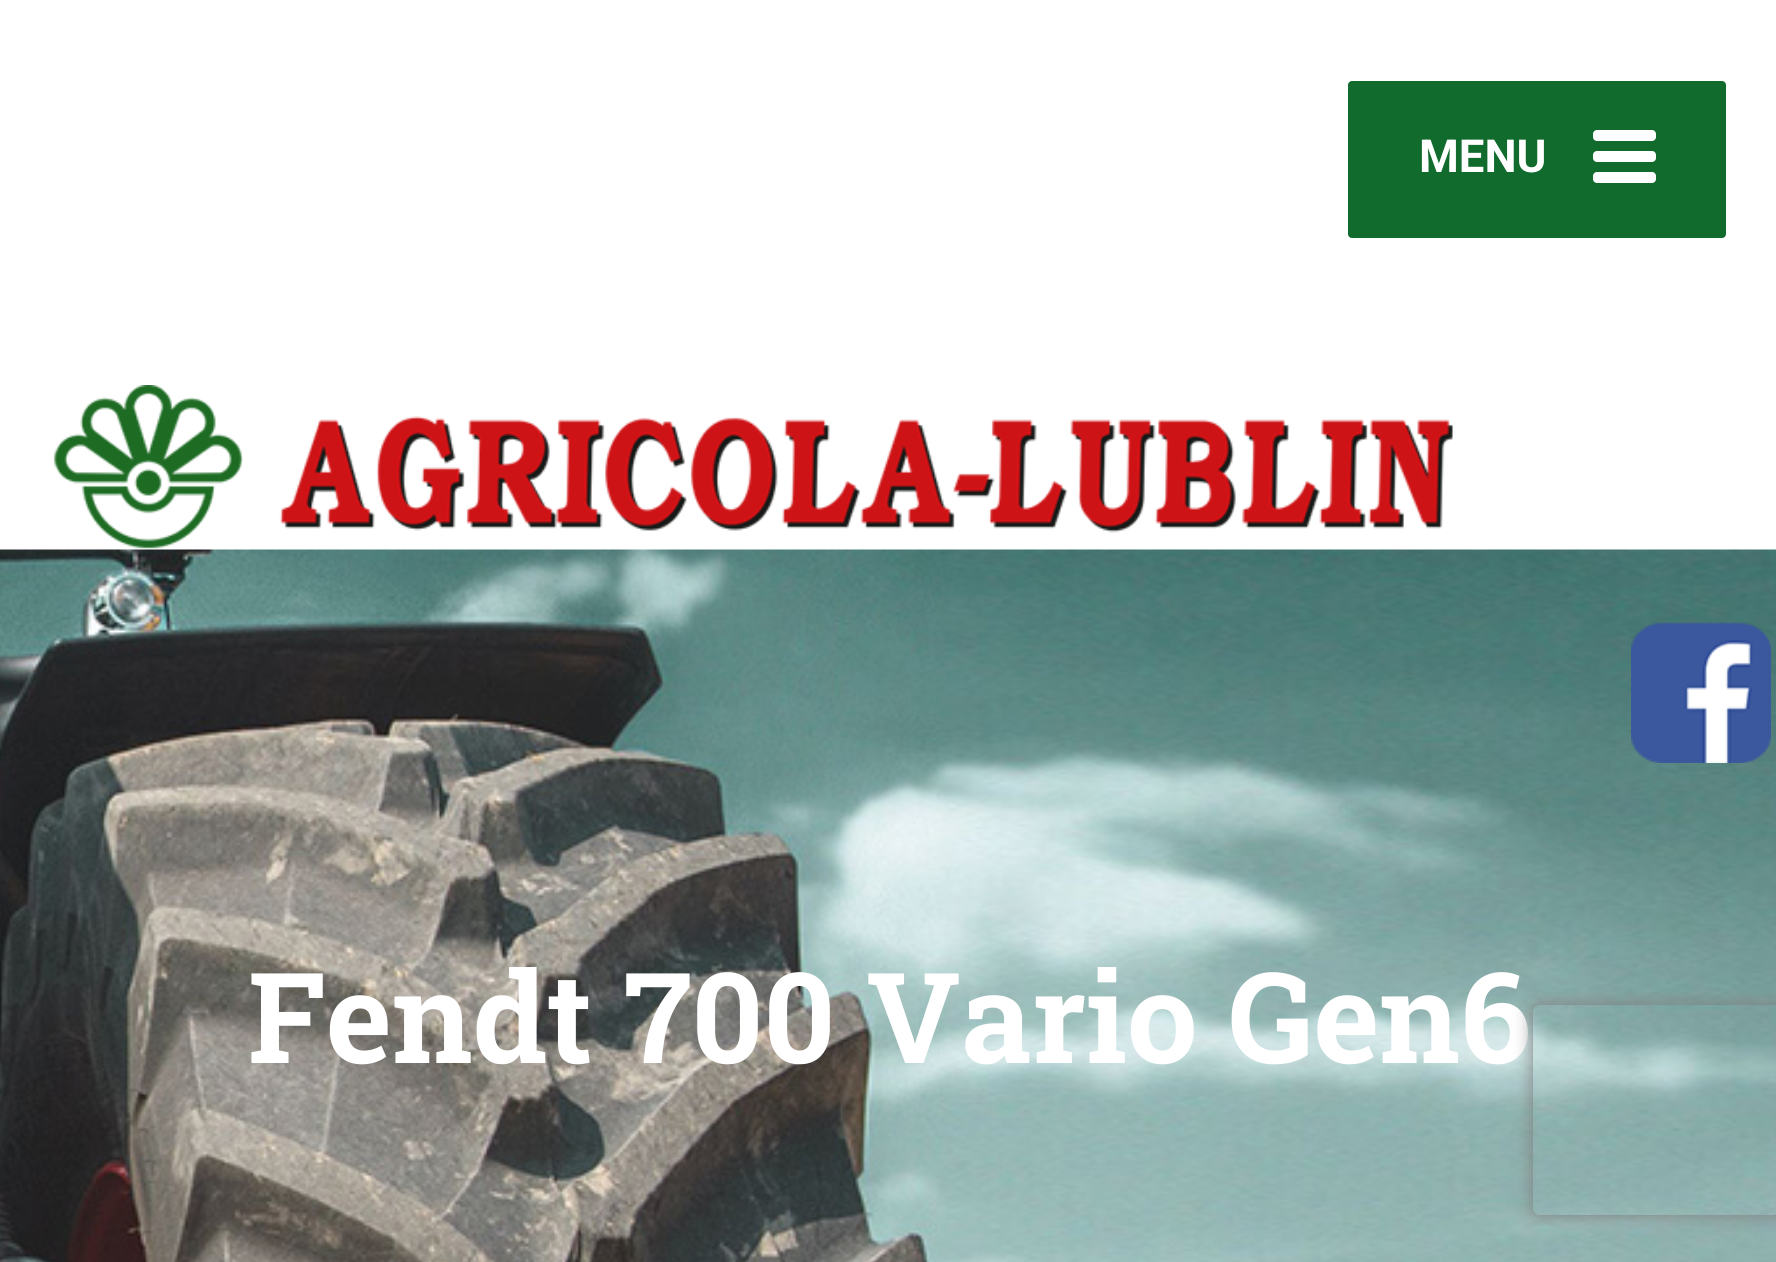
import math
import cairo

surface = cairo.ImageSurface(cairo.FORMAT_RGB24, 1776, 1262)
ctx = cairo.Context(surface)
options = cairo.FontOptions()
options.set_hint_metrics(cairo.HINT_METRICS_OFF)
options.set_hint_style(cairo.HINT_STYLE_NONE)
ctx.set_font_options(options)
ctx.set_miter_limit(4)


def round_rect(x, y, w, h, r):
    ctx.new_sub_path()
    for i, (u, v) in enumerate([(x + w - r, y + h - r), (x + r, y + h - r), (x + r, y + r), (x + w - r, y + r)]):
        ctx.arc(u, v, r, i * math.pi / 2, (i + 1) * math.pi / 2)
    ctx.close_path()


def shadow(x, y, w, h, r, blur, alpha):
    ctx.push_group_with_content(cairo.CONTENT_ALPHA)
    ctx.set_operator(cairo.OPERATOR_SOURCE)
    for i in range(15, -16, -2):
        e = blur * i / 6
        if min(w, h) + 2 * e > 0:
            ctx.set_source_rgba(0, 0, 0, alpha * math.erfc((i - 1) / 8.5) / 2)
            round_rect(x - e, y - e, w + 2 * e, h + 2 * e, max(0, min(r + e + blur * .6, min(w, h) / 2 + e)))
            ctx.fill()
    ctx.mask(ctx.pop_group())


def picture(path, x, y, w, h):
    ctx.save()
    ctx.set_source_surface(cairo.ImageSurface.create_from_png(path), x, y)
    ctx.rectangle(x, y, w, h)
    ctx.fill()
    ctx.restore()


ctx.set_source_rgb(1, 1, 1)
ctx.paint()
ctx.set_source_rgb(0.063, 0.42, 0.176)
round_rect(1348, 81, 378, 157, 4)
ctx.fill()
ctx.select_font_face("Roboto", cairo.FONT_SLANT_NORMAL, cairo.FONT_WEIGHT_BOLD)
ctx.set_font_size(45.5)
ctx.set_source_rgb(1, 1, 1)
ctx.move_to(1419, 172)
ctx.show_text("MENU")
round_rect(1593, 130, 63, 11, 4)
ctx.fill()
round_rect(1593, 151, 63, 11, 4)
ctx.fill()
round_rect(1593, 172, 63, 11, 4)
ctx.fill()
picture("img1.png", 53, 385, 1400, 164)
picture("img2.png", 0, 549, 1776, 713)
ctx.select_font_face("Roboto Slab", cairo.FONT_SLANT_NORMAL, cairo.FONT_WEIGHT_BOLD)
ctx.set_font_size(126)
ctx.move_to(248, 1063)
ctx.show_text("Fendt 700 Vario Gen6")
picture("img3.png", 1631, 622, 140, 141)
ctx.save()
ctx.set_fill_rule(cairo.FILL_RULE_EVEN_ODD)
ctx.new_path()
ctx.move_to(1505, 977)
ctx.line_to(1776, 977)
ctx.line_to(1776, 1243)
ctx.line_to(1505, 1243)
ctx.close_path()
ctx.move_to(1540, 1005)
ctx.line_to(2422, 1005)
ctx.curve_to(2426, 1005, 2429, 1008, 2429, 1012)
ctx.line_to(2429, 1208)
ctx.curve_to(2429, 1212, 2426, 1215, 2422, 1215)
ctx.line_to(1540, 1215)
ctx.curve_to(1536, 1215, 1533, 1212, 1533, 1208)
ctx.line_to(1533, 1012)
ctx.curve_to(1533, 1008, 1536, 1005, 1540, 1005)
ctx.close_path()
ctx.clip()
ctx.set_source_rgb(0.502, 0.502, 0.502)
shadow(1533, 1005, 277, 210, 7, 9, 1)
ctx.restore()
surface.write_to_png("page.png")
